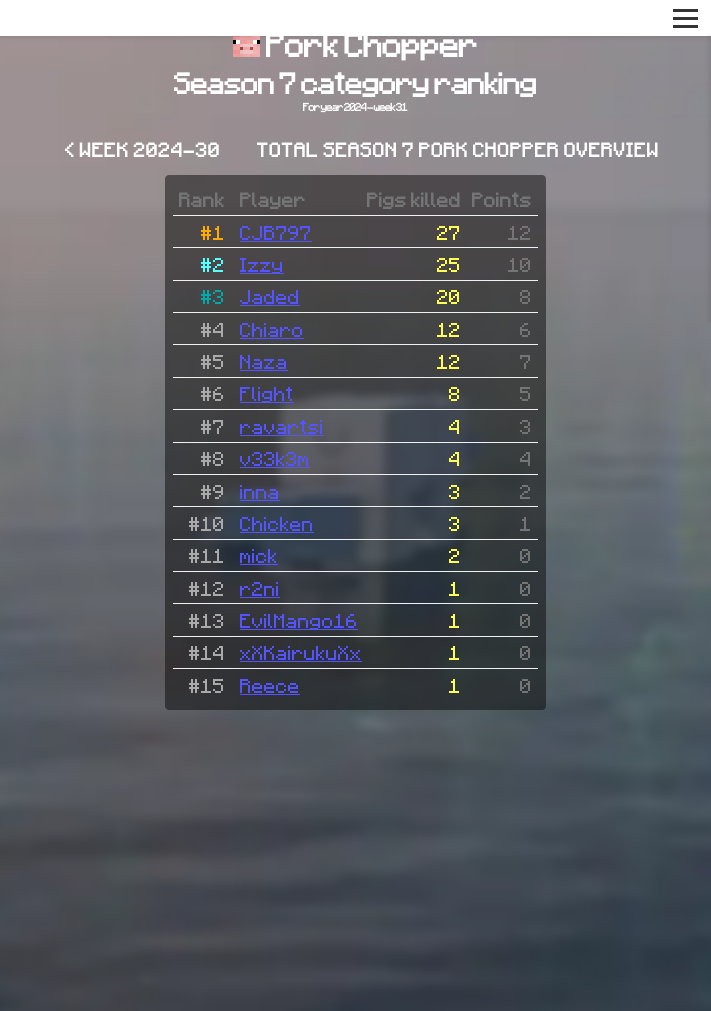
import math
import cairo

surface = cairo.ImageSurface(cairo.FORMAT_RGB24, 711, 1011)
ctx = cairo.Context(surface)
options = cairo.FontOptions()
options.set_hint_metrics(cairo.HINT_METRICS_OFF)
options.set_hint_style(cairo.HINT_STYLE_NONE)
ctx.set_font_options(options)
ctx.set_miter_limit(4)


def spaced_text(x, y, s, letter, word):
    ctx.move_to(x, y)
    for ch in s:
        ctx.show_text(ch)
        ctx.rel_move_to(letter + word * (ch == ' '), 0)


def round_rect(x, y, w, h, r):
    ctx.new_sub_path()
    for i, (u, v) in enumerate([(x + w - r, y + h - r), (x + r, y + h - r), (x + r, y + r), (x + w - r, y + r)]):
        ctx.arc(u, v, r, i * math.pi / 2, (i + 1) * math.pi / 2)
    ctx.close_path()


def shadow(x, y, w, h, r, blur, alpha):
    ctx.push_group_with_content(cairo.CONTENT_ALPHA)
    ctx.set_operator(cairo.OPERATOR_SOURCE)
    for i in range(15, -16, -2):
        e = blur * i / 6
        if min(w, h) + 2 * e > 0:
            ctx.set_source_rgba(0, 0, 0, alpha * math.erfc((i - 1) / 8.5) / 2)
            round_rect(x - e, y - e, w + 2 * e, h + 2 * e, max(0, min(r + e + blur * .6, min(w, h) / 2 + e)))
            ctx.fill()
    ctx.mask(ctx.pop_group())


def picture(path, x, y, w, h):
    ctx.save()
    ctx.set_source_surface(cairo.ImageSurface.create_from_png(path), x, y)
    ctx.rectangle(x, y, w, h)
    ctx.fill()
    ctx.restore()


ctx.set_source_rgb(1, 1, 1)
ctx.paint()
picture("img2.png", 0, 36, 711, 975)
picture("img1.png", 233, 36, 27, 21)
ctx.set_source_rgb(0, 0, 0)
shadow(0, 2, 711, 36, 0, 2.5, 0.1)
ctx.set_source_rgb(1, 1, 1)
ctx.rectangle(0, 0, 711, 36)
ctx.fill()
ctx.set_source_rgb(0.2, 0.2, 0.2)
ctx.rectangle(673, 9, 25, 3)
ctx.fill()
ctx.rectangle(673, 17, 25, 3)
ctx.fill()
ctx.rectangle(673, 25, 25, 3)
ctx.fill()
ctx.set_source_rgb(0, 0, 0)
shadow(709, 36, 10, 286, 0, 2.5, 0.1)
ctx.select_font_face("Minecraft", cairo.FONT_SLANT_NORMAL, cairo.FONT_WEIGHT_BOLD)
ctx.set_font_size(27)
ctx.set_source_rgb(1, 1, 1)
spaced_text(266, 57, "Pork Chopper", -1.2, 0)
ctx.set_font_size(24)
spaced_text(174, 94, "Season 7 category ranking", -1.2, 0)
ctx.set_font_size(9)
spaced_text(303, 111, "For year 2024 - week 31", -1.2, 0)
ctx.set_font_size(16)
spaced_text(65, 157, "< WEEK 2024-30", 0.4, 0)
spaced_text(257, 157, "TOTAL SEASON 7 PORK CHOPPER OVERVIEW", 0.4, 0)
ctx.set_source_rgba(0.039, 0.039, 0.039, 0.5)
round_rect(165, 175, 381, 535, 4)
ctx.fill()
ctx.set_source_rgb(0.455, 0.459, 0.459)
ctx.move_to(179, 207)
ctx.show_text("Rank")
ctx.move_to(240, 207)
ctx.show_text("Player")
ctx.move_to(367, 207)
ctx.show_text("Pigs killed")
ctx.set_source_rgb(0.937, 0.941, 0.949)
ctx.rectangle(173, 215, 365, 1)
ctx.fill()
ctx.set_source_rgb(0.455, 0.459, 0.459)
ctx.move_to(472, 207)
ctx.show_text("Points")
ctx.select_font_face("Minecraft")
ctx.set_source_rgb(1, 0.667, 0)
ctx.move_to(201, 240)
ctx.show_text("#1")
ctx.set_source_rgb(0.333, 0.333, 1)
ctx.move_to(240, 240)
ctx.show_text("CJB797")
ctx.rectangle(240, 241, 72, 1)
ctx.fill()
ctx.set_source_rgb(1, 1, 0.333)
ctx.move_to(437, 240)
ctx.show_text("27")
ctx.set_source_rgb(0.937, 0.941, 0.949)
ctx.rectangle(173, 247, 365, 1)
ctx.fill()
ctx.set_source_rgb(0.455, 0.459, 0.459)
ctx.move_to(508, 240)
ctx.show_text("12")
ctx.set_source_rgb(0.333, 1, 1)
ctx.move_to(201, 272)
ctx.show_text("#2")
ctx.set_source_rgb(0.333, 0.333, 1)
ctx.rectangle(240, 273, 44, 1)
ctx.fill()
ctx.move_to(240, 272)
ctx.show_text("Izzy")
ctx.set_source_rgb(1, 1, 0.333)
ctx.move_to(437, 272)
ctx.show_text("25")
ctx.set_source_rgb(0.937, 0.941, 0.949)
ctx.rectangle(173, 280, 365, 1)
ctx.fill()
ctx.set_source_rgb(0.455, 0.459, 0.459)
ctx.move_to(508, 272)
ctx.show_text("10")
ctx.set_source_rgb(0, 0.667, 0.667)
ctx.move_to(201, 304)
ctx.show_text("#3")
ctx.set_source_rgb(0.333, 0.333, 1)
ctx.move_to(240, 304)
ctx.show_text("Jaded")
ctx.rectangle(240, 305, 60, 1)
ctx.fill()
ctx.set_source_rgb(1, 1, 0.333)
ctx.move_to(437, 304)
ctx.show_text("20")
ctx.set_source_rgb(0.937, 0.941, 0.949)
ctx.rectangle(173, 312, 365, 1)
ctx.fill()
ctx.set_source_rgb(0.455, 0.459, 0.459)
ctx.move_to(520, 304)
ctx.show_text("8")
ctx.set_source_rgb(0.667, 0.667, 0.667)
ctx.move_to(201, 337)
ctx.show_text("#4")
ctx.set_source_rgb(0.333, 0.333, 1)
ctx.move_to(240, 337)
ctx.show_text("Chiaro")
ctx.rectangle(240, 338, 64, 1)
ctx.fill()
ctx.set_source_rgb(1, 1, 0.333)
ctx.move_to(437, 337)
ctx.show_text("12")
ctx.set_source_rgb(0.937, 0.941, 0.949)
ctx.rectangle(173, 344, 365, 1)
ctx.fill()
ctx.set_source_rgb(0.455, 0.459, 0.459)
ctx.move_to(520, 337)
ctx.show_text("6")
ctx.set_source_rgb(0.667, 0.667, 0.667)
ctx.move_to(201, 369)
ctx.show_text("#5")
ctx.set_source_rgb(0.333, 0.333, 1)
ctx.move_to(240, 369)
ctx.show_text("Naza")
ctx.rectangle(240, 370, 48, 1)
ctx.fill()
ctx.set_source_rgb(1, 1, 0.333)
ctx.move_to(437, 369)
ctx.show_text("12")
ctx.set_source_rgb(0.937, 0.941, 0.949)
ctx.rectangle(173, 377, 365, 1)
ctx.fill()
ctx.set_source_rgb(0.455, 0.459, 0.459)
ctx.move_to(520, 369)
ctx.show_text("7")
ctx.set_source_rgb(0.667, 0.667, 0.667)
ctx.move_to(201, 401)
ctx.show_text("#6")
ctx.set_source_rgb(0.333, 0.333, 1)
ctx.rectangle(240, 402, 54, 1)
ctx.fill()
ctx.move_to(240, 401)
ctx.show_text("Flight")
ctx.set_source_rgb(1, 1, 0.333)
ctx.move_to(449, 401)
ctx.show_text("8")
ctx.set_source_rgb(0.937, 0.941, 0.949)
ctx.rectangle(173, 409, 365, 1)
ctx.fill()
ctx.set_source_rgb(0.455, 0.459, 0.459)
ctx.move_to(520, 401)
ctx.show_text("5")
ctx.set_source_rgb(0.667, 0.667, 0.667)
ctx.move_to(201, 434)
ctx.show_text("#7")
ctx.set_source_rgb(0.333, 0.333, 1)
ctx.move_to(240, 434)
ctx.show_text("ravartsi")
ctx.rectangle(240, 435, 84, 1)
ctx.fill()
ctx.set_source_rgb(1, 1, 0.333)
ctx.move_to(449, 434)
ctx.show_text("4")
ctx.set_source_rgb(0.937, 0.941, 0.949)
ctx.rectangle(173, 442, 365, 1)
ctx.fill()
ctx.set_source_rgb(0.455, 0.459, 0.459)
ctx.move_to(520, 434)
ctx.show_text("3")
ctx.set_source_rgb(0.667, 0.667, 0.667)
ctx.move_to(201, 466)
ctx.show_text("#8")
ctx.set_source_rgb(0.333, 0.333, 1)
ctx.move_to(240, 466)
ctx.show_text("v33k3m")
ctx.rectangle(240, 467, 70, 1)
ctx.fill()
ctx.set_source_rgb(1, 1, 0.333)
ctx.move_to(449, 466)
ctx.show_text("4")
ctx.set_source_rgb(0.937, 0.941, 0.949)
ctx.rectangle(173, 474, 365, 1)
ctx.fill()
ctx.set_source_rgb(0.455, 0.459, 0.459)
ctx.move_to(520, 466)
ctx.show_text("4")
ctx.set_source_rgb(0.667, 0.667, 0.667)
ctx.move_to(201, 499)
ctx.show_text("#9")
ctx.set_source_rgb(0.333, 0.333, 1)
ctx.move_to(240, 499)
ctx.show_text("inna")
ctx.rectangle(240, 500, 40, 1)
ctx.fill()
ctx.set_source_rgb(1, 1, 0.333)
ctx.move_to(449, 499)
ctx.show_text("3")
ctx.set_source_rgb(0.937, 0.941, 0.949)
ctx.rectangle(173, 506, 365, 1)
ctx.fill()
ctx.set_source_rgb(0.455, 0.459, 0.459)
ctx.move_to(520, 499)
ctx.show_text("2")
ctx.set_source_rgb(0.667, 0.667, 0.667)
ctx.move_to(189, 531)
ctx.show_text("#10")
ctx.set_source_rgb(0.333, 0.333, 1)
ctx.move_to(240, 531)
ctx.show_text("Chicken")
ctx.rectangle(240, 532, 74, 1)
ctx.fill()
ctx.set_source_rgb(1, 1, 0.333)
ctx.move_to(449, 531)
ctx.show_text("3")
ctx.set_source_rgb(0.937, 0.941, 0.949)
ctx.rectangle(173, 539, 365, 1)
ctx.fill()
ctx.set_source_rgb(0.455, 0.459, 0.459)
ctx.move_to(520, 531)
ctx.show_text("1")
ctx.set_source_rgb(0.667, 0.667, 0.667)
ctx.move_to(189, 563)
ctx.show_text("#11")
ctx.set_source_rgb(0.333, 0.333, 1)
ctx.move_to(240, 563)
ctx.show_text("mick")
ctx.rectangle(240, 564, 38, 1)
ctx.fill()
ctx.set_source_rgb(1, 1, 0.333)
ctx.move_to(449, 563)
ctx.show_text("2")
ctx.set_source_rgb(0.937, 0.941, 0.949)
ctx.rectangle(173, 571, 365, 1)
ctx.fill()
ctx.set_source_rgb(0.455, 0.459, 0.459)
ctx.move_to(520, 563)
ctx.show_text("0")
ctx.set_source_rgb(0.667, 0.667, 0.667)
ctx.move_to(189, 596)
ctx.show_text("#12")
ctx.set_source_rgb(0.333, 0.333, 1)
ctx.move_to(240, 596)
ctx.show_text("r2ni")
ctx.rectangle(240, 597, 40, 1)
ctx.fill()
ctx.set_source_rgb(1, 1, 0.333)
ctx.move_to(449, 596)
ctx.show_text("1")
ctx.set_source_rgb(0.937, 0.941, 0.949)
ctx.rectangle(173, 603, 365, 1)
ctx.fill()
ctx.set_source_rgb(0.455, 0.459, 0.459)
ctx.move_to(520, 596)
ctx.show_text("0")
ctx.set_source_rgb(0.667, 0.667, 0.667)
ctx.move_to(189, 628)
ctx.show_text("#13")
ctx.set_source_rgb(0.333, 0.333, 1)
ctx.rectangle(240, 629, 118, 1)
ctx.fill()
ctx.move_to(240, 628)
ctx.show_text("EvilMango16")
ctx.set_source_rgb(1, 1, 0.333)
ctx.move_to(449, 628)
ctx.show_text("1")
ctx.set_source_rgb(0.937, 0.941, 0.949)
ctx.rectangle(173, 636, 365, 1)
ctx.fill()
ctx.set_source_rgb(0.455, 0.459, 0.459)
ctx.move_to(520, 628)
ctx.show_text("0")
ctx.set_source_rgb(0.667, 0.667, 0.667)
ctx.move_to(189, 660)
ctx.show_text("#14")
ctx.set_source_rgb(0.333, 0.333, 1)
ctx.move_to(240, 660)
ctx.show_text("xXKairukuXx")
ctx.rectangle(240, 661, 122, 1)
ctx.fill()
ctx.set_source_rgb(1, 1, 0.333)
ctx.move_to(449, 660)
ctx.show_text("1")
ctx.set_source_rgb(0.937, 0.941, 0.949)
ctx.rectangle(173, 668, 365, 1)
ctx.fill()
ctx.set_source_rgb(0.455, 0.459, 0.459)
ctx.move_to(520, 660)
ctx.show_text("0")
ctx.set_source_rgb(0.667, 0.667, 0.667)
ctx.move_to(189, 693)
ctx.show_text("#15")
ctx.set_source_rgb(0.333, 0.333, 1)
ctx.move_to(240, 693)
ctx.show_text("Reece")
ctx.rectangle(240, 694, 60, 1)
ctx.fill()
ctx.set_source_rgb(1, 1, 0.333)
ctx.move_to(449, 693)
ctx.show_text("1")
ctx.set_source_rgb(0.455, 0.459, 0.459)
ctx.move_to(520, 693)
ctx.show_text("0")
surface.write_to_png("page.png")
